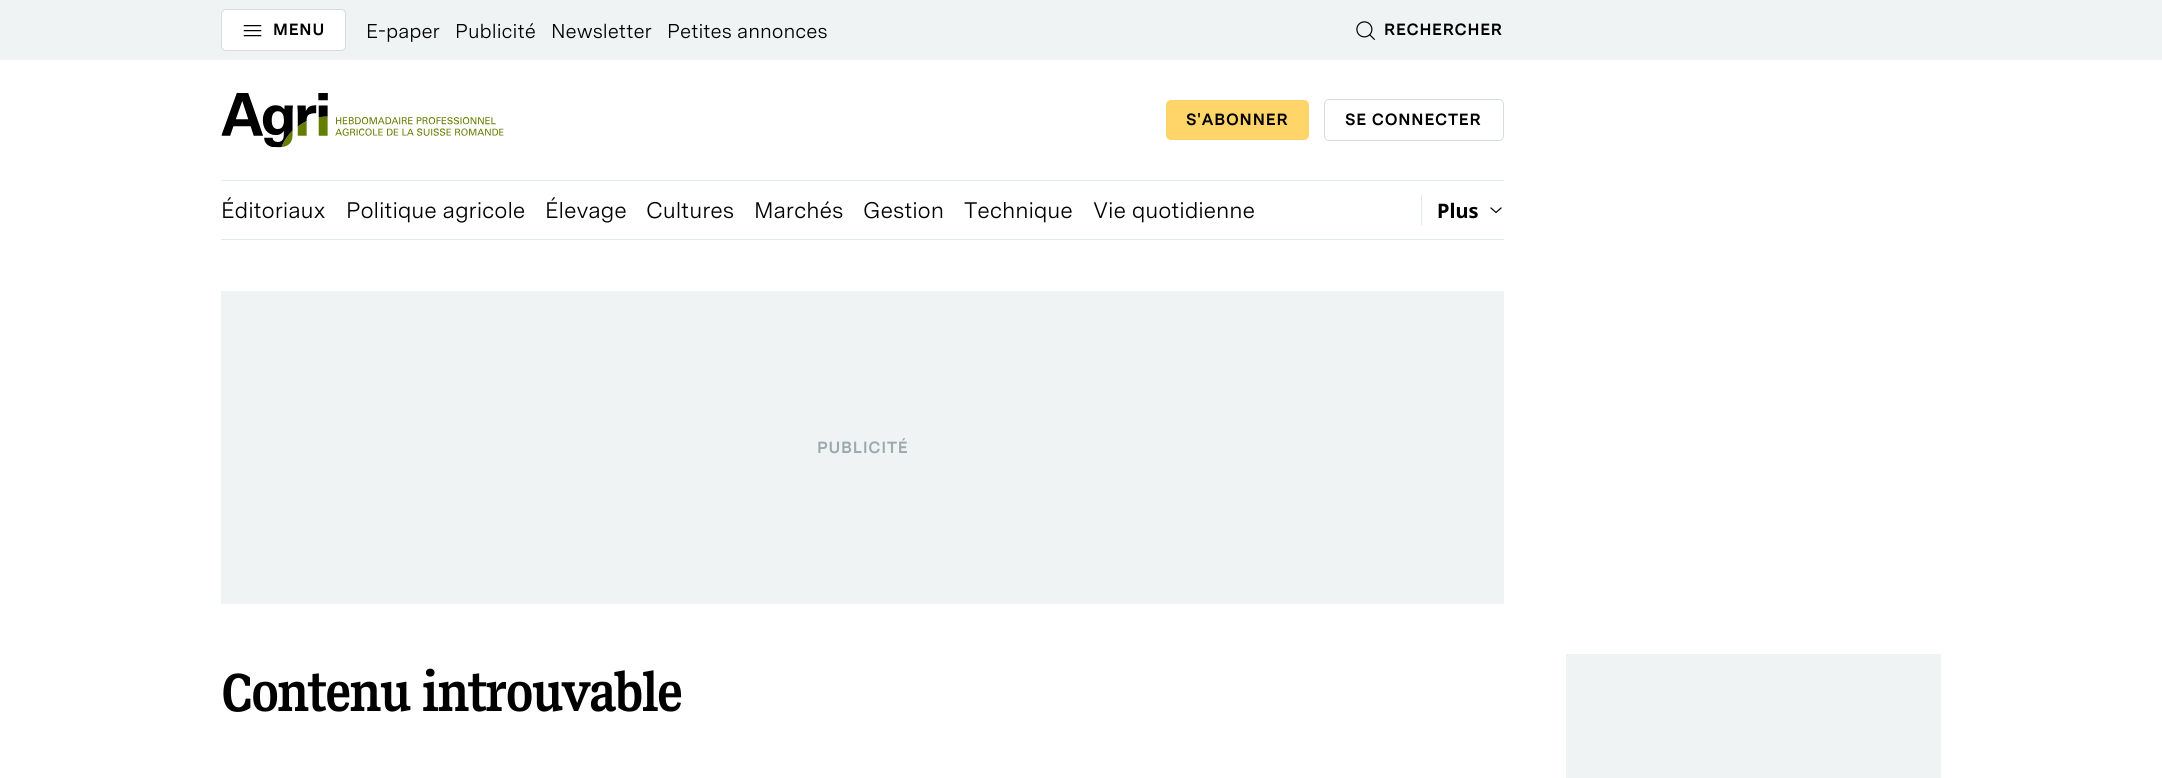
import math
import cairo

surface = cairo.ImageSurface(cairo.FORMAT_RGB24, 2162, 778)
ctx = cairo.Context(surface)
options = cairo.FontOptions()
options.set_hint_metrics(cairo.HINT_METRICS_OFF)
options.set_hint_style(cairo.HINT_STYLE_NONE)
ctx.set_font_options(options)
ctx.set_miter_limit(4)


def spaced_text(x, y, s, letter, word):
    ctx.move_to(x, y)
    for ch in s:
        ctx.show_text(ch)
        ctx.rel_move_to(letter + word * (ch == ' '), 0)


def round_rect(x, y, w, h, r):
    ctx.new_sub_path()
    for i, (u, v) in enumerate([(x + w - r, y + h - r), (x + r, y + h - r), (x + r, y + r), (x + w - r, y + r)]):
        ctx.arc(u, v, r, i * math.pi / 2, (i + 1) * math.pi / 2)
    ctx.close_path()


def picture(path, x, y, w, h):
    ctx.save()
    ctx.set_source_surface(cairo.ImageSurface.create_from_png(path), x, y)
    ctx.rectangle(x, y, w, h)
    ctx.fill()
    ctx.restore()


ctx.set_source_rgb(1, 1, 1)
ctx.paint()
ctx.set_source_rgb(0.937, 0.953, 0.957)
ctx.rectangle(0, 0, 2162, 60)
ctx.fill()
ctx.set_source_rgb(1, 1, 1)
round_rect(221.5, 9.5, 124, 41, 4.5)
ctx.fill_preserve()
ctx.set_source_rgb(0.839, 0.867, 0.875)
ctx.set_line_width(1)
ctx.stroke()
picture("img1.png", 243, 25, 19, 12)
ctx.select_font_face("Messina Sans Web", cairo.FONT_SLANT_NORMAL, cairo.FONT_WEIGHT_BOLD)
ctx.set_font_size(16.25)
ctx.set_source_rgb(0, 0, 0)
spaced_text(273, 35, "MENU", 0.75, 0)
ctx.select_font_face("Messina Sans Web")
ctx.set_font_size(20)
ctx.move_to(366, 38)
ctx.show_text("E-paper")
ctx.move_to(455, 38)
ctx.show_text("Publicité")
ctx.move_to(551, 38)
ctx.show_text("Newsletter")
ctx.move_to(667, 38)
ctx.show_text("Petites annonces")
picture("img2.png", 1356, 21, 19, 19)
ctx.select_font_face("Messina Sans Web", cairo.FONT_SLANT_NORMAL, cairo.FONT_WEIGHT_BOLD)
ctx.set_font_size(16.25)
spaced_text(1384, 35, "RECHERCHER", 0.75, 0)
picture("img3.png", 221, 93, 283, 55)
ctx.set_source_rgb(1, 0.835, 0.412)
round_rect(1166, 100, 143, 40, 5)
ctx.fill()
ctx.set_source_rgb(0, 0, 0)
spaced_text(1186, 125, "S'ABONNER", 0.75, 0)
round_rect(1324.5, 99.5, 179, 41, 4.5)
ctx.set_source_rgb(0.839, 0.867, 0.875)
ctx.stroke()
ctx.set_source_rgb(0, 0, 0)
spaced_text(1345, 125, "SE CONNECTER", 0.75, 0)
ctx.set_source_rgb(0.894, 0.914, 0.922)
ctx.rectangle(221, 180, 1283, 1)
ctx.fill()
ctx.select_font_face("Messina Sans Web")
ctx.set_font_size(22.5)
ctx.set_source_rgb(0, 0, 0)
spaced_text(221, 218, "Éditoriaux", -0.1, 0)
spaced_text(346, 218, "Politique agricole", -0.1, 0)
spaced_text(545, 218, "Élevage", -0.1, 0)
spaced_text(646, 218, "Cultures", -0.1, 0)
spaced_text(754, 218, "Marchés", -0.1, 0)
spaced_text(863, 218, "Gestion", -0.1, 0)
spaced_text(964, 218, "Technique", -0.1, 0)
spaced_text(1093, 218, "Vie quotidienne", -0.1, 0)
ctx.set_source_rgb(0.894, 0.914, 0.922)
ctx.rectangle(1421, 195, 1, 30)
ctx.fill()
ctx.select_font_face("Noto Sans", cairo.FONT_SLANT_NORMAL, cairo.FONT_WEIGHT_BOLD)
ctx.set_font_size(20)
ctx.set_source_rgb(0, 0, 0)
ctx.move_to(1437, 218)
ctx.show_text("Plus")
ctx.new_path()
ctx.move_to(1491, 208)
ctx.line_to(1496, 212.5)
ctx.line_to(1501, 208)
ctx.set_line_width(1.2)
ctx.set_line_cap(cairo.LINE_CAP_SQUARE)
ctx.stroke()
ctx.set_source_rgb(0.894, 0.914, 0.922)
ctx.rectangle(221, 239, 1283, 1)
ctx.fill()
ctx.set_source_rgb(0.937, 0.953, 0.957)
ctx.rectangle(221, 291, 1283, 313)
ctx.fill()
ctx.select_font_face("Messina Sans Web", cairo.FONT_SLANT_NORMAL, cairo.FONT_WEIGHT_BOLD)
ctx.set_font_size(16.25)
ctx.set_source_rgb(0.612, 0.667, 0.678)
spaced_text(817, 453, "PUBLICITÉ", 0.75, 0)
ctx.select_font_face("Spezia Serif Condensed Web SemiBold")
ctx.set_font_size(52.5)
ctx.set_source_rgb(0, 0, 0)
spaced_text(221, 711, "Contenu introuvable", -2.6, 0)
ctx.set_source_rgb(0.937, 0.953, 0.957)
ctx.rectangle(1566, 654, 375, 124)
ctx.fill()
surface.write_to_png("page.png")
